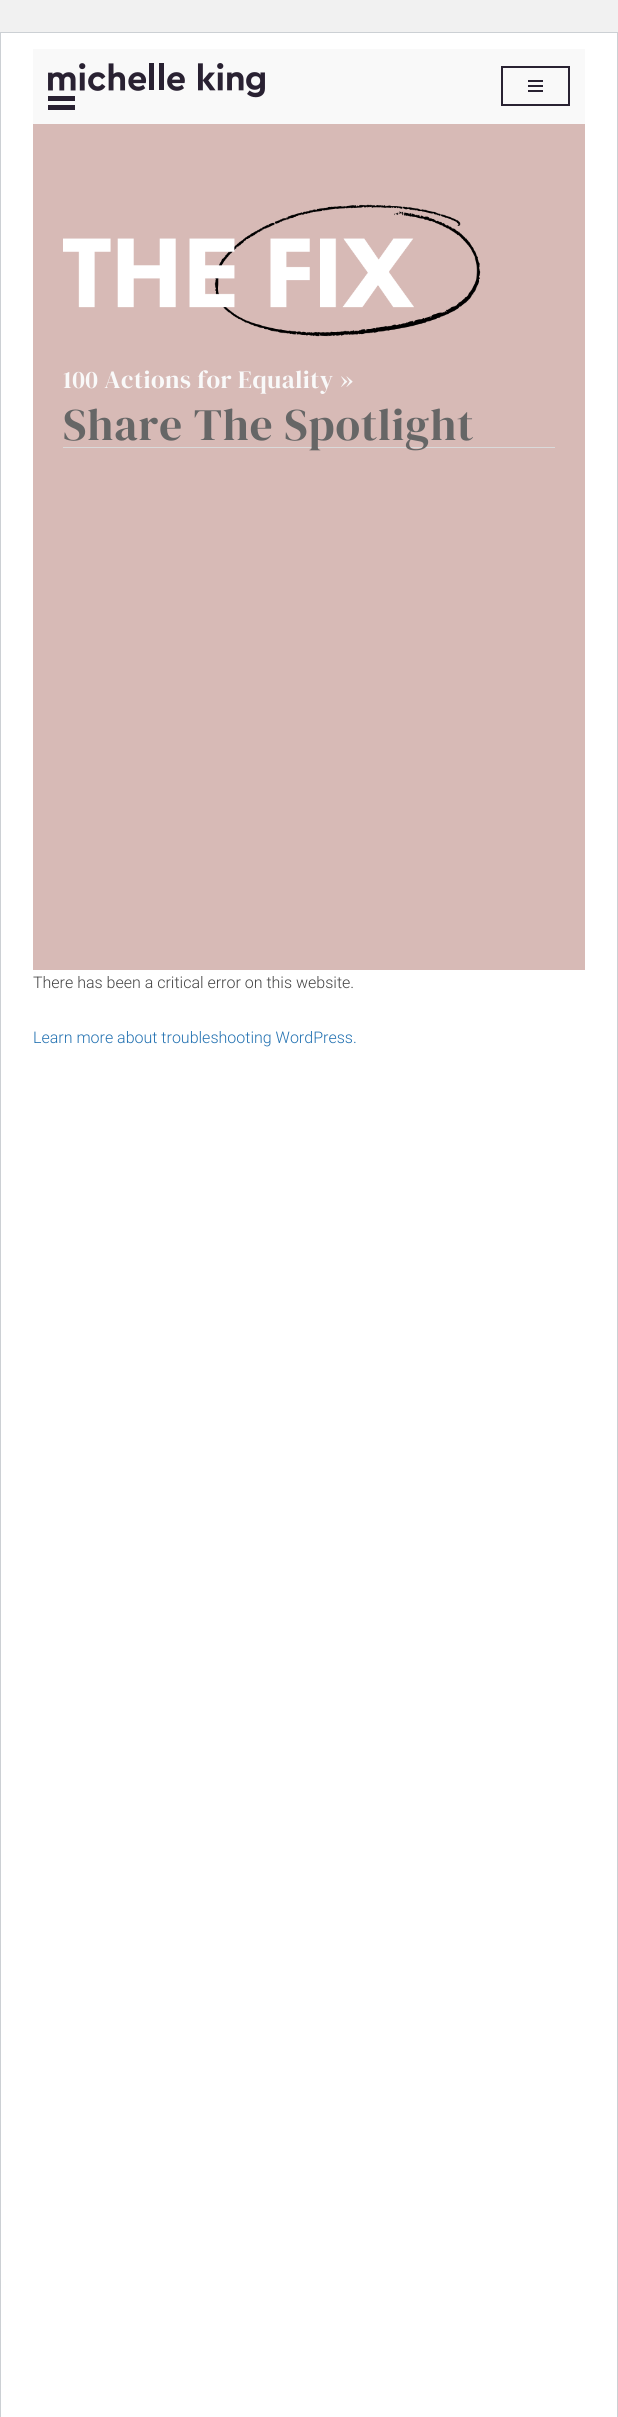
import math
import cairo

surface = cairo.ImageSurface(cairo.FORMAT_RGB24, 618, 2417)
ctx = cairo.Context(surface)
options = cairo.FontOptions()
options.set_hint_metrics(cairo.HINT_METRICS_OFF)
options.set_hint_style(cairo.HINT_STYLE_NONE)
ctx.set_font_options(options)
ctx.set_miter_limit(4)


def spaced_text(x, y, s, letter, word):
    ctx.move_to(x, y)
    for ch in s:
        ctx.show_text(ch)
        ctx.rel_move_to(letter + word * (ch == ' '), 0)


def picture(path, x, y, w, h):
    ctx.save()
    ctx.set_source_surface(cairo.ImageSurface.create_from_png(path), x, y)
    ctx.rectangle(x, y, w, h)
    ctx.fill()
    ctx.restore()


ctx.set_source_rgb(0.945, 0.945, 0.945)
ctx.paint()
ctx.set_source_rgb(1, 1, 1)
ctx.rectangle(0.5, 32.5, 617, 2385)
ctx.fill_preserve()
ctx.set_source_rgb(0.8, 0.816, 0.831)
ctx.set_line_width(1)
ctx.stroke()
ctx.set_source_rgb(0.973, 0.973, 0.973)
ctx.rectangle(33, 49, 552, 75)
ctx.fill()
picture("img1.png", 48, 63, 217, 47)
ctx.rectangle(502, 67, 67, 38)
ctx.set_source_rgb(0.161, 0.133, 0.196)
ctx.set_line_width(2)
ctx.stroke()
ctx.rectangle(528, 80, 15, 2)
ctx.fill()
ctx.rectangle(528, 85, 15, 2)
ctx.fill()
ctx.rectangle(528, 90, 15, 2)
ctx.fill()
ctx.set_source_rgb(0.843, 0.729, 0.714)
ctx.rectangle(33, 124, 552, 846)
ctx.fill()
picture("img2.png", 63, 204, 418, 133)
ctx.select_font_face("DM Serif Display")
ctx.set_font_size(25)
ctx.set_source_rgb(0.973, 0.973, 0.973)
spaced_text(63, 388, "100 Actions for Equality »", 0.5, 0)
ctx.set_source_rgb(0.855, 0.855, 0.855)
ctx.rectangle(63, 447, 492, 1)
ctx.fill()
ctx.set_font_size(45)
ctx.set_source_rgb(0.4, 0.4, 0.4)
spaced_text(63, 440, "Share The Spotlight", 0.9, 0)
ctx.select_font_face("Roboto Light")
ctx.set_font_size(16)
ctx.set_source_rgb(0.267, 0.267, 0.267)
ctx.move_to(33, 988)
ctx.show_text("There has been a critical error on this website.")
ctx.set_source_rgb(0.133, 0.443, 0.694)
ctx.move_to(33, 1043)
ctx.show_text("Learn more about troubleshooting WordPress.")
surface.write_to_png("page.png")
